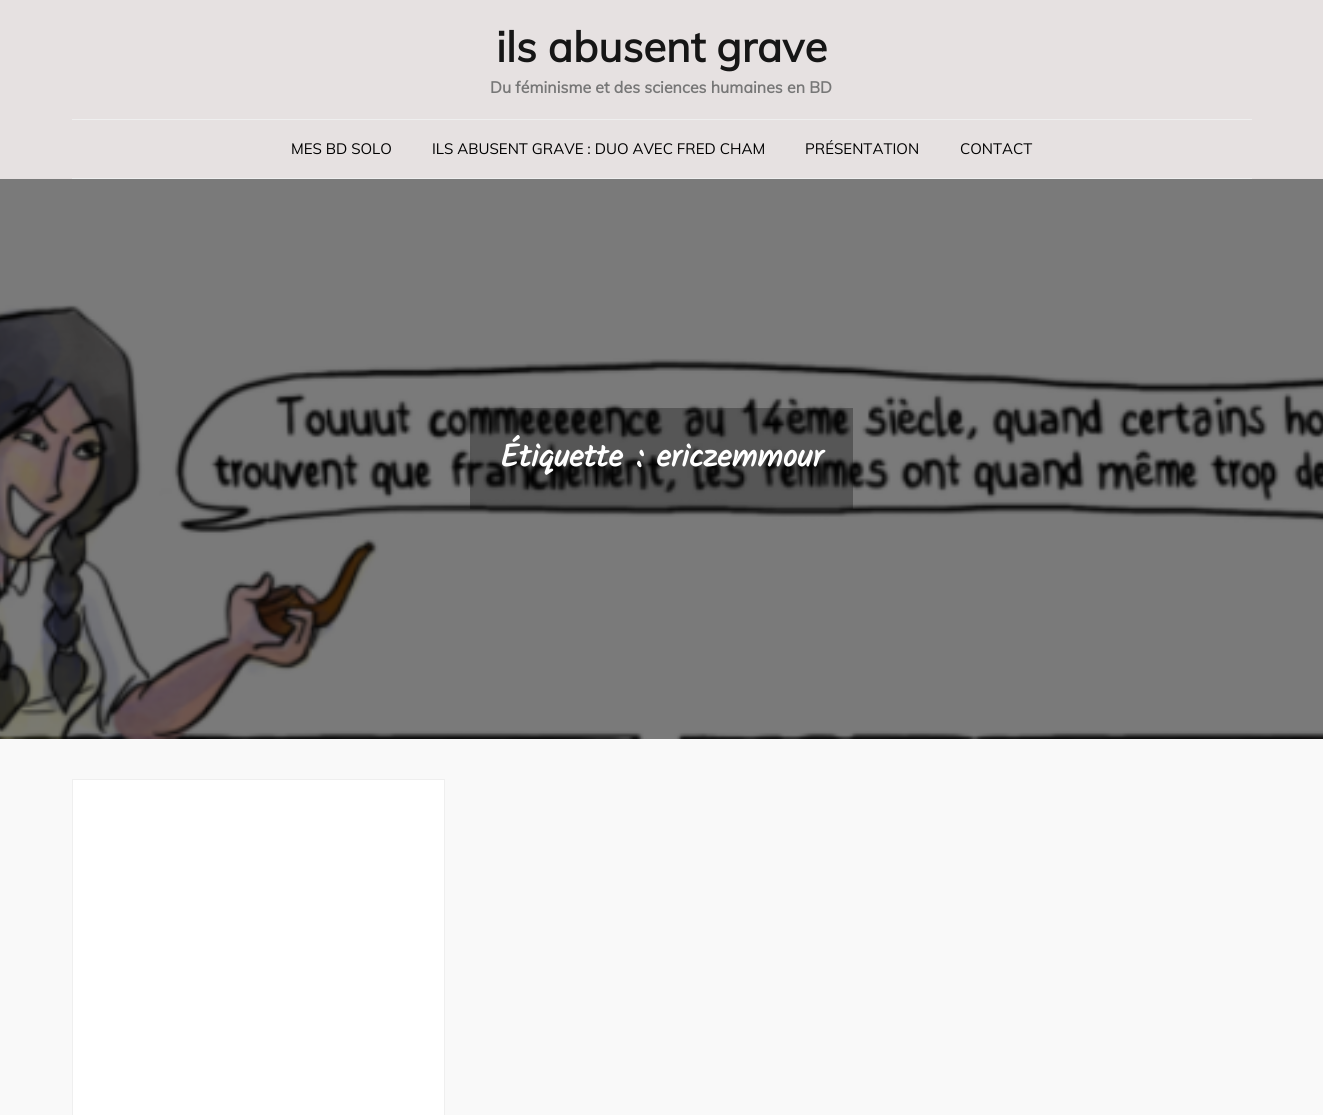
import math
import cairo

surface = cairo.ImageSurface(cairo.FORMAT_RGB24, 1323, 1115)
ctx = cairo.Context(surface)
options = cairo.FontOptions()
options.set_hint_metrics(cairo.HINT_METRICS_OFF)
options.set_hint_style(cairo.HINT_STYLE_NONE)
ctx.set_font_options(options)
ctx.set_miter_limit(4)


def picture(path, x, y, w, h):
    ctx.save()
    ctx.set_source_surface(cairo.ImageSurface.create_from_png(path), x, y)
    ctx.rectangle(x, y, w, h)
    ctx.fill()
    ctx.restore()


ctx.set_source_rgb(0.973, 0.973, 0.973)
ctx.paint()
ctx.set_source_rgb(0.902, 0.882, 0.882)
ctx.rectangle(0, 0, 1323, 179)
ctx.fill()
ctx.select_font_face("Muli", cairo.FONT_SLANT_NORMAL, cairo.FONT_WEIGHT_BOLD)
ctx.set_font_size(42)
ctx.set_source_rgb(0.086, 0.086, 0.086)
ctx.move_to(496, 62)
ctx.show_text("ils abusent grave")
ctx.set_font_size(16)
ctx.set_source_rgb(0.467, 0.467, 0.467)
ctx.move_to(490, 93)
ctx.show_text("Du féminisme et des sciences humaines en BD")
ctx.set_source_rgb(0.937, 0.937, 0.937)
ctx.rectangle(72, 119, 1180, 1)
ctx.fill()
ctx.rectangle(72, 178, 1180, 1)
ctx.fill()
ctx.select_font_face("Muli")
ctx.set_font_size(15)
ctx.set_source_rgb(0, 0, 0)
ctx.move_to(291, 154)
ctx.show_text("MES BD SOLO")
ctx.move_to(432, 154)
ctx.show_text("ILS ABUSENT GRAVE : DUO AVEC FRED CHAM")
ctx.move_to(805, 154)
ctx.show_text("PRÉSENTATION")
ctx.move_to(960, 154)
ctx.show_text("CONTACT")
picture("img1.png", 0, 179, 1323, 560)
ctx.set_source_rgba(0, 0, 0, 0.3)
ctx.rectangle(470, 408, 383, 101)
ctx.fill()
ctx.select_font_face("Kalam", cairo.FONT_SLANT_NORMAL, cairo.FONT_WEIGHT_BOLD)
ctx.set_font_size(32)
ctx.set_source_rgb(1, 1, 1)
ctx.move_to(500, 467)
ctx.show_text("Étiquette : ericzemmour")
ctx.rectangle(72.5, 779.5, 372, 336)
ctx.fill_preserve()
ctx.set_source_rgb(0.937, 0.937, 0.937)
ctx.set_line_width(1)
ctx.stroke()
surface.write_to_png("page.png")
